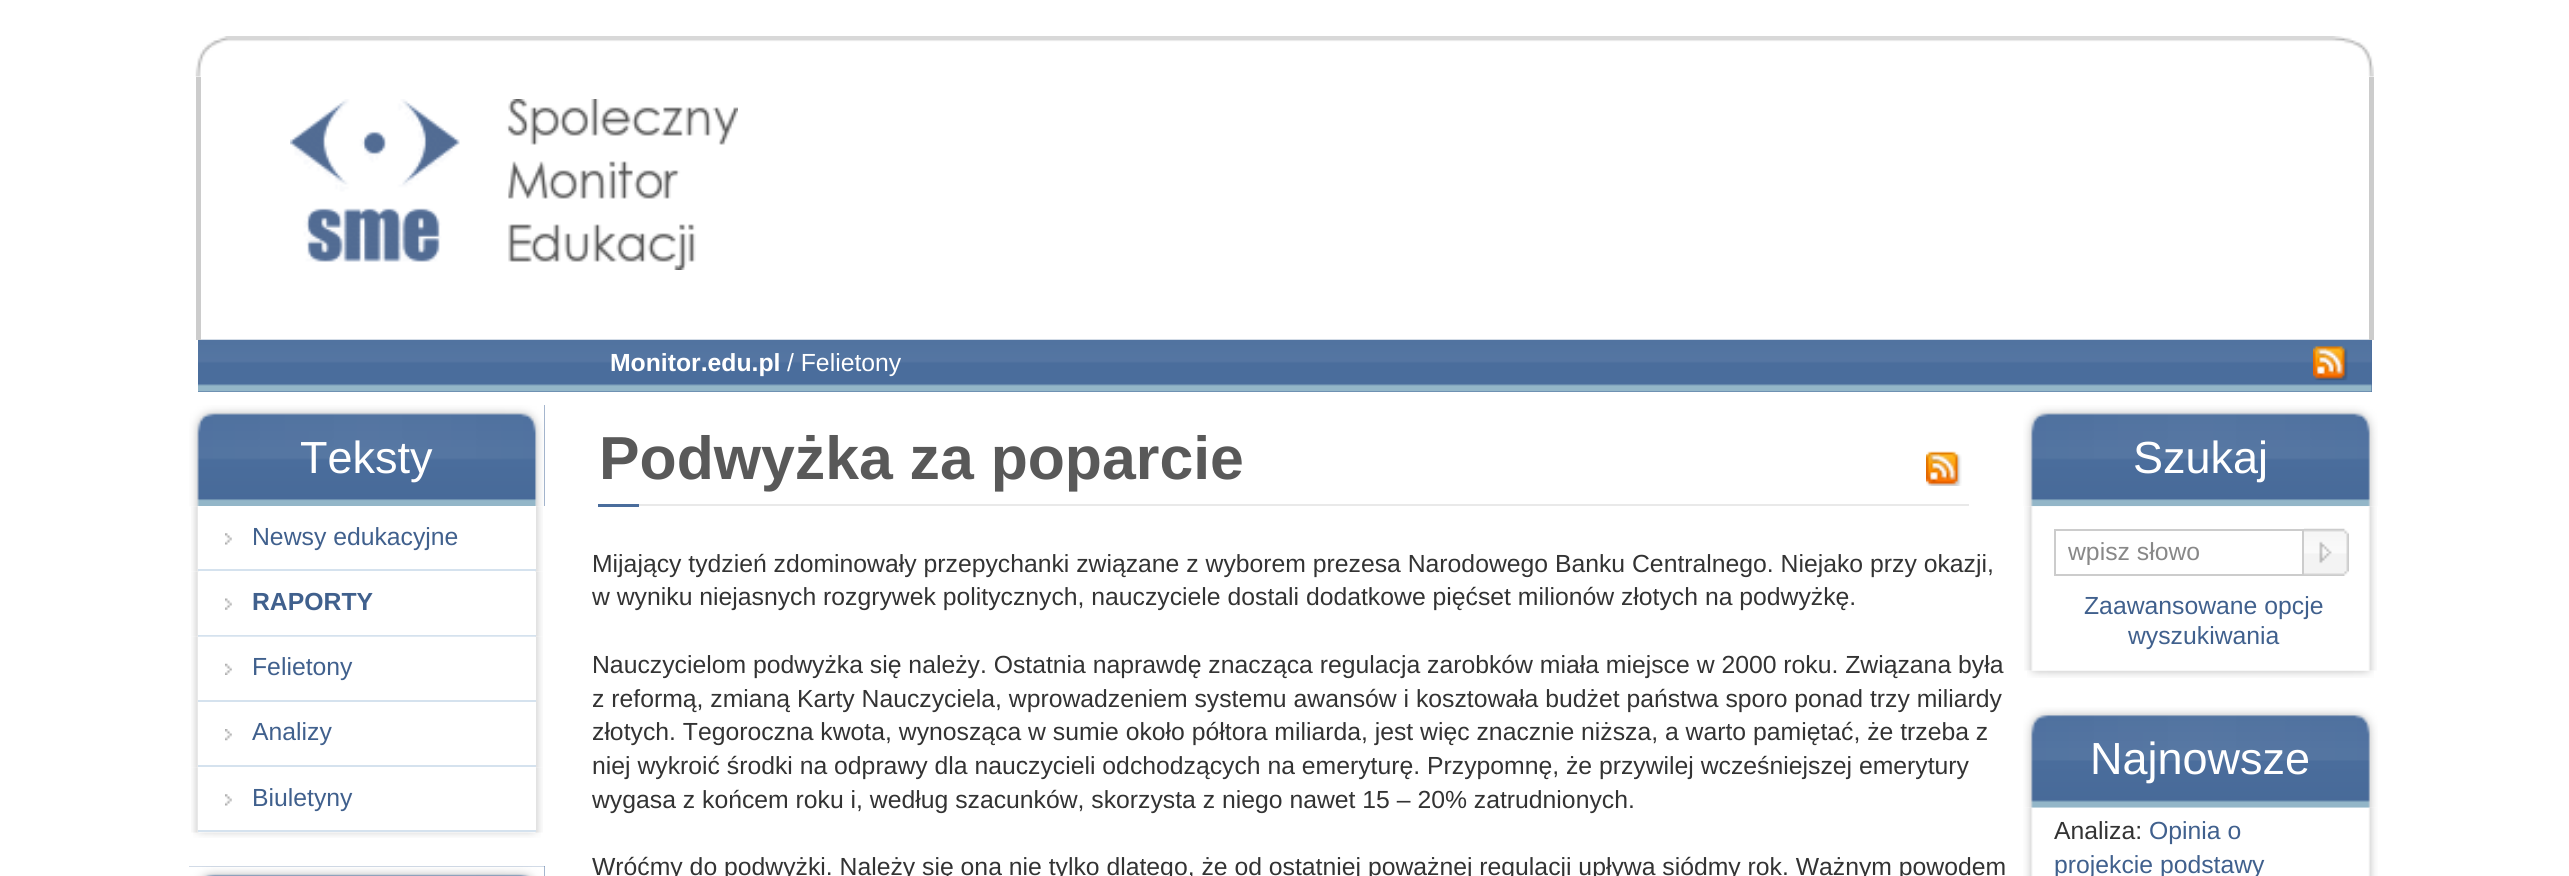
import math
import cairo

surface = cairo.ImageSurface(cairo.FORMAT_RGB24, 2569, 876)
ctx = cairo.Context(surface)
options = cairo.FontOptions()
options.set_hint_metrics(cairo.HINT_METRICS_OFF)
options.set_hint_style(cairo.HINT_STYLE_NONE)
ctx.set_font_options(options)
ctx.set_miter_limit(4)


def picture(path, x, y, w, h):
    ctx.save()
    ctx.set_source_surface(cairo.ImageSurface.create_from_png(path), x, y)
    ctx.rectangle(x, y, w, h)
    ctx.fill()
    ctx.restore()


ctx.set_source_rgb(1, 1, 1)
ctx.paint()
picture("img1.png", 195, 36, 2179, 41)
ctx.set_source_rgb(0.29, 0.427, 0.612)
ctx.rectangle(198, 340, 2174, 52)
ctx.fill()
picture("img3.png", 198, 339, 2174, 53)
ctx.set_source_rgb(0.8, 0.8, 0.8)
ctx.rectangle(2369, 77, 5, 263)
ctx.fill()
ctx.rectangle(196, 77, 5, 263)
ctx.fill()
picture("img2.png", 290, 99, 448, 171)
ctx.select_font_face("Liberation Sans", cairo.FONT_SLANT_NORMAL, cairo.FONT_WEIGHT_BOLD)
ctx.set_font_size(24.75)
ctx.set_source_rgb(1, 1, 1)
ctx.move_to(610, 371)
ctx.show_text("Monitor.edu.pl")
ctx.select_font_face("Liberation Sans")
ctx.move_to(787, 371)
ctx.show_text("/ Felietony")
picture("img4.png", 2313, 346, 35, 35)
picture("img5.png", 193, 832, 348, 6)
ctx.set_source_rgb(0.29, 0.427, 0.612)
ctx.rectangle(544, 405, 1, 101)
ctx.fill()
picture("img6.png", 189, 405, 356, 102)
ctx.set_font_size(45)
ctx.set_source_rgb(1, 1, 1)
ctx.move_to(300, 473)
ctx.show_text("Teksty")
picture("img7.png", 191, 506, 352, 66)
ctx.rectangle(198, 506, 338, 63)
ctx.fill()
picture("img8.png", 225, 533, 7, 12)
ctx.set_source_rgb(0.835, 0.886, 0.933)
ctx.rectangle(198, 569, 338, 2)
ctx.fill()
ctx.set_font_size(24.75)
ctx.set_source_rgb(0.251, 0.376, 0.553)
ctx.move_to(252, 545)
ctx.show_text("Newsy edukacyjne")
picture("img9.png", 191, 571, 352, 66)
ctx.set_source_rgb(1, 1, 1)
ctx.rectangle(198, 572, 338, 63)
ctx.fill()
picture("img10.png", 225, 598, 7, 12)
ctx.set_source_rgb(0.835, 0.886, 0.933)
ctx.rectangle(198, 635, 338, 2)
ctx.fill()
ctx.select_font_face("Liberation Sans", cairo.FONT_SLANT_NORMAL, cairo.FONT_WEIGHT_BOLD)
ctx.set_source_rgb(0.251, 0.376, 0.553)
ctx.move_to(252, 610)
ctx.show_text("RAPORTY")
picture("img11.png", 191, 636, 352, 66)
ctx.set_source_rgb(1, 1, 1)
ctx.rectangle(198, 637, 338, 63)
ctx.fill()
picture("img12.png", 225, 663, 7, 12)
ctx.set_source_rgb(0.835, 0.886, 0.933)
ctx.rectangle(198, 700, 338, 2)
ctx.fill()
ctx.select_font_face("Liberation Sans")
ctx.set_source_rgb(0.251, 0.376, 0.553)
ctx.move_to(252, 675)
ctx.show_text("Felietony")
picture("img13.png", 191, 702, 352, 66)
ctx.set_source_rgb(1, 1, 1)
ctx.rectangle(198, 702, 338, 63)
ctx.fill()
picture("img14.png", 225, 729, 7, 12)
ctx.set_source_rgb(0.835, 0.886, 0.933)
ctx.rectangle(198, 765, 338, 2)
ctx.fill()
ctx.set_source_rgb(0.251, 0.376, 0.553)
ctx.move_to(252, 740)
ctx.show_text("Analizy")
picture("img15.png", 191, 767, 352, 66)
ctx.set_source_rgb(1, 1, 1)
ctx.rectangle(198, 767, 338, 63)
ctx.fill()
picture("img8.png", 225, 794, 7, 12)
ctx.set_source_rgb(0.835, 0.886, 0.933)
ctx.rectangle(198, 830, 338, 2)
ctx.fill()
ctx.set_source_rgb(0.251, 0.376, 0.553)
ctx.move_to(252, 806)
ctx.show_text("Biuletyny")
ctx.set_source_rgb(0.29, 0.427, 0.612)
ctx.rectangle(189, 866, 356, 10)
ctx.fill()
picture("img16.png", 189, 866, 356, 10)
ctx.select_font_face("Liberation Sans", cairo.FONT_SLANT_NORMAL, cairo.FONT_WEIGHT_BOLD)
ctx.set_font_size(60.75)
ctx.set_source_rgb(0.349, 0.349, 0.349)
ctx.move_to(599, 479)
ctx.show_text("Podwyżka za poparcie")
picture("img17.png", 1926, 451, 36, 35)
ctx.set_source_rgb(0.914, 0.914, 0.914)
ctx.rectangle(639, 504, 1330, 2)
ctx.fill()
ctx.set_source_rgb(0.29, 0.427, 0.612)
ctx.rectangle(598, 504, 41, 3)
ctx.fill()
ctx.select_font_face("Liberation Sans")
ctx.set_font_size(24.75)
ctx.set_source_rgb(0.2, 0.2, 0.2)
ctx.move_to(592, 572)
ctx.show_text("Mijający tydzień zdominowały przepychanki związane z wyborem prezesa Narodowego Banku Centralnego. Niejako przy okazji,")
ctx.move_to(592, 605)
ctx.show_text("w wyniku niejasnych rozgrywek politycznych, nauczyciele dostali dodatkowe pięćset milionów złotych na podwyżkę.")
ctx.move_to(592, 673)
ctx.show_text("Nauczycielom podwyżka się należy. Ostatnia naprawdę znacząca regulacja zarobków miała miejsce w 2000 roku. Związana była")
ctx.move_to(592, 707)
ctx.show_text("z reformą, zmianą Karty Nauczyciela, wprowadzeniem systemu awansów i kosztowała budżet państwa sporo ponad trzy miliardy")
ctx.move_to(592, 740)
ctx.show_text("złotych. Tegoroczna kwota, wynosząca w sumie około półtora miliarda, jest więc znacznie niższa, a warto pamiętać, że trzeba z")
ctx.move_to(592, 774)
ctx.show_text("niej wykroić środki na odprawy dla nauczycieli odchodzących na emeryturę. Przypomnę, że przywilej wcześniejszej emerytury")
ctx.move_to(592, 808)
ctx.show_text("wygasa z końcem roku i, według szacunków, skorzysta z niego nawet 15 – 20% zatrudnionych.")
ctx.move_to(592, 875)
ctx.show_text("Wróćmy do podwyżki. Należy się ona nie tylko dlatego, że od ostatniej poważnej regulacji upływa siódmy rok. Ważnym powodem")
picture("img18.png", 2023, 405, 355, 102)
ctx.set_font_size(45)
ctx.set_source_rgb(1, 1, 1)
ctx.move_to(2133, 473)
ctx.show_text("Szukaj")
picture("img19.png", 2027, 670, 347, 8)
picture("img20.png", 2024, 506, 353, 165)
ctx.rectangle(2055, 530, 248, 45)
ctx.set_source_rgb(0.8, 0.8, 0.8)
ctx.stroke()
ctx.save()
ctx.rectangle(2068, 538, 234, 27)
ctx.clip()
ctx.set_font_size(24.75)
ctx.set_source_rgb(0.533, 0.533, 0.533)
ctx.move_to(2068, 560)
ctx.show_text("wpisz słowo")
ctx.restore()
picture("img21.png", 2304, 528, 45, 48)
ctx.set_font_size(24.75)
ctx.set_source_rgb(0.251, 0.376, 0.553)
ctx.move_to(2084, 614)
ctx.show_text("Zaawansowane opcje")
ctx.move_to(2128, 644)
ctx.show_text("wyszukiwania")
picture("img22.png", 2023, 707, 355, 101)
ctx.set_font_size(45)
ctx.set_source_rgb(1, 1, 1)
ctx.move_to(2090, 774)
ctx.show_text("Najnowsze")
picture("img23.png", 2023, 807, 355, 69)
ctx.set_font_size(24.75)
ctx.set_source_rgb(0.2, 0.2, 0.2)
ctx.move_to(2054, 839)
ctx.show_text("Analiza:")
ctx.set_source_rgb(0.251, 0.376, 0.553)
ctx.move_to(2149, 839)
ctx.show_text("Opinia o")
ctx.move_to(2054, 873)
ctx.show_text("projekcie podstawy")
surface.write_to_png("page.png")
